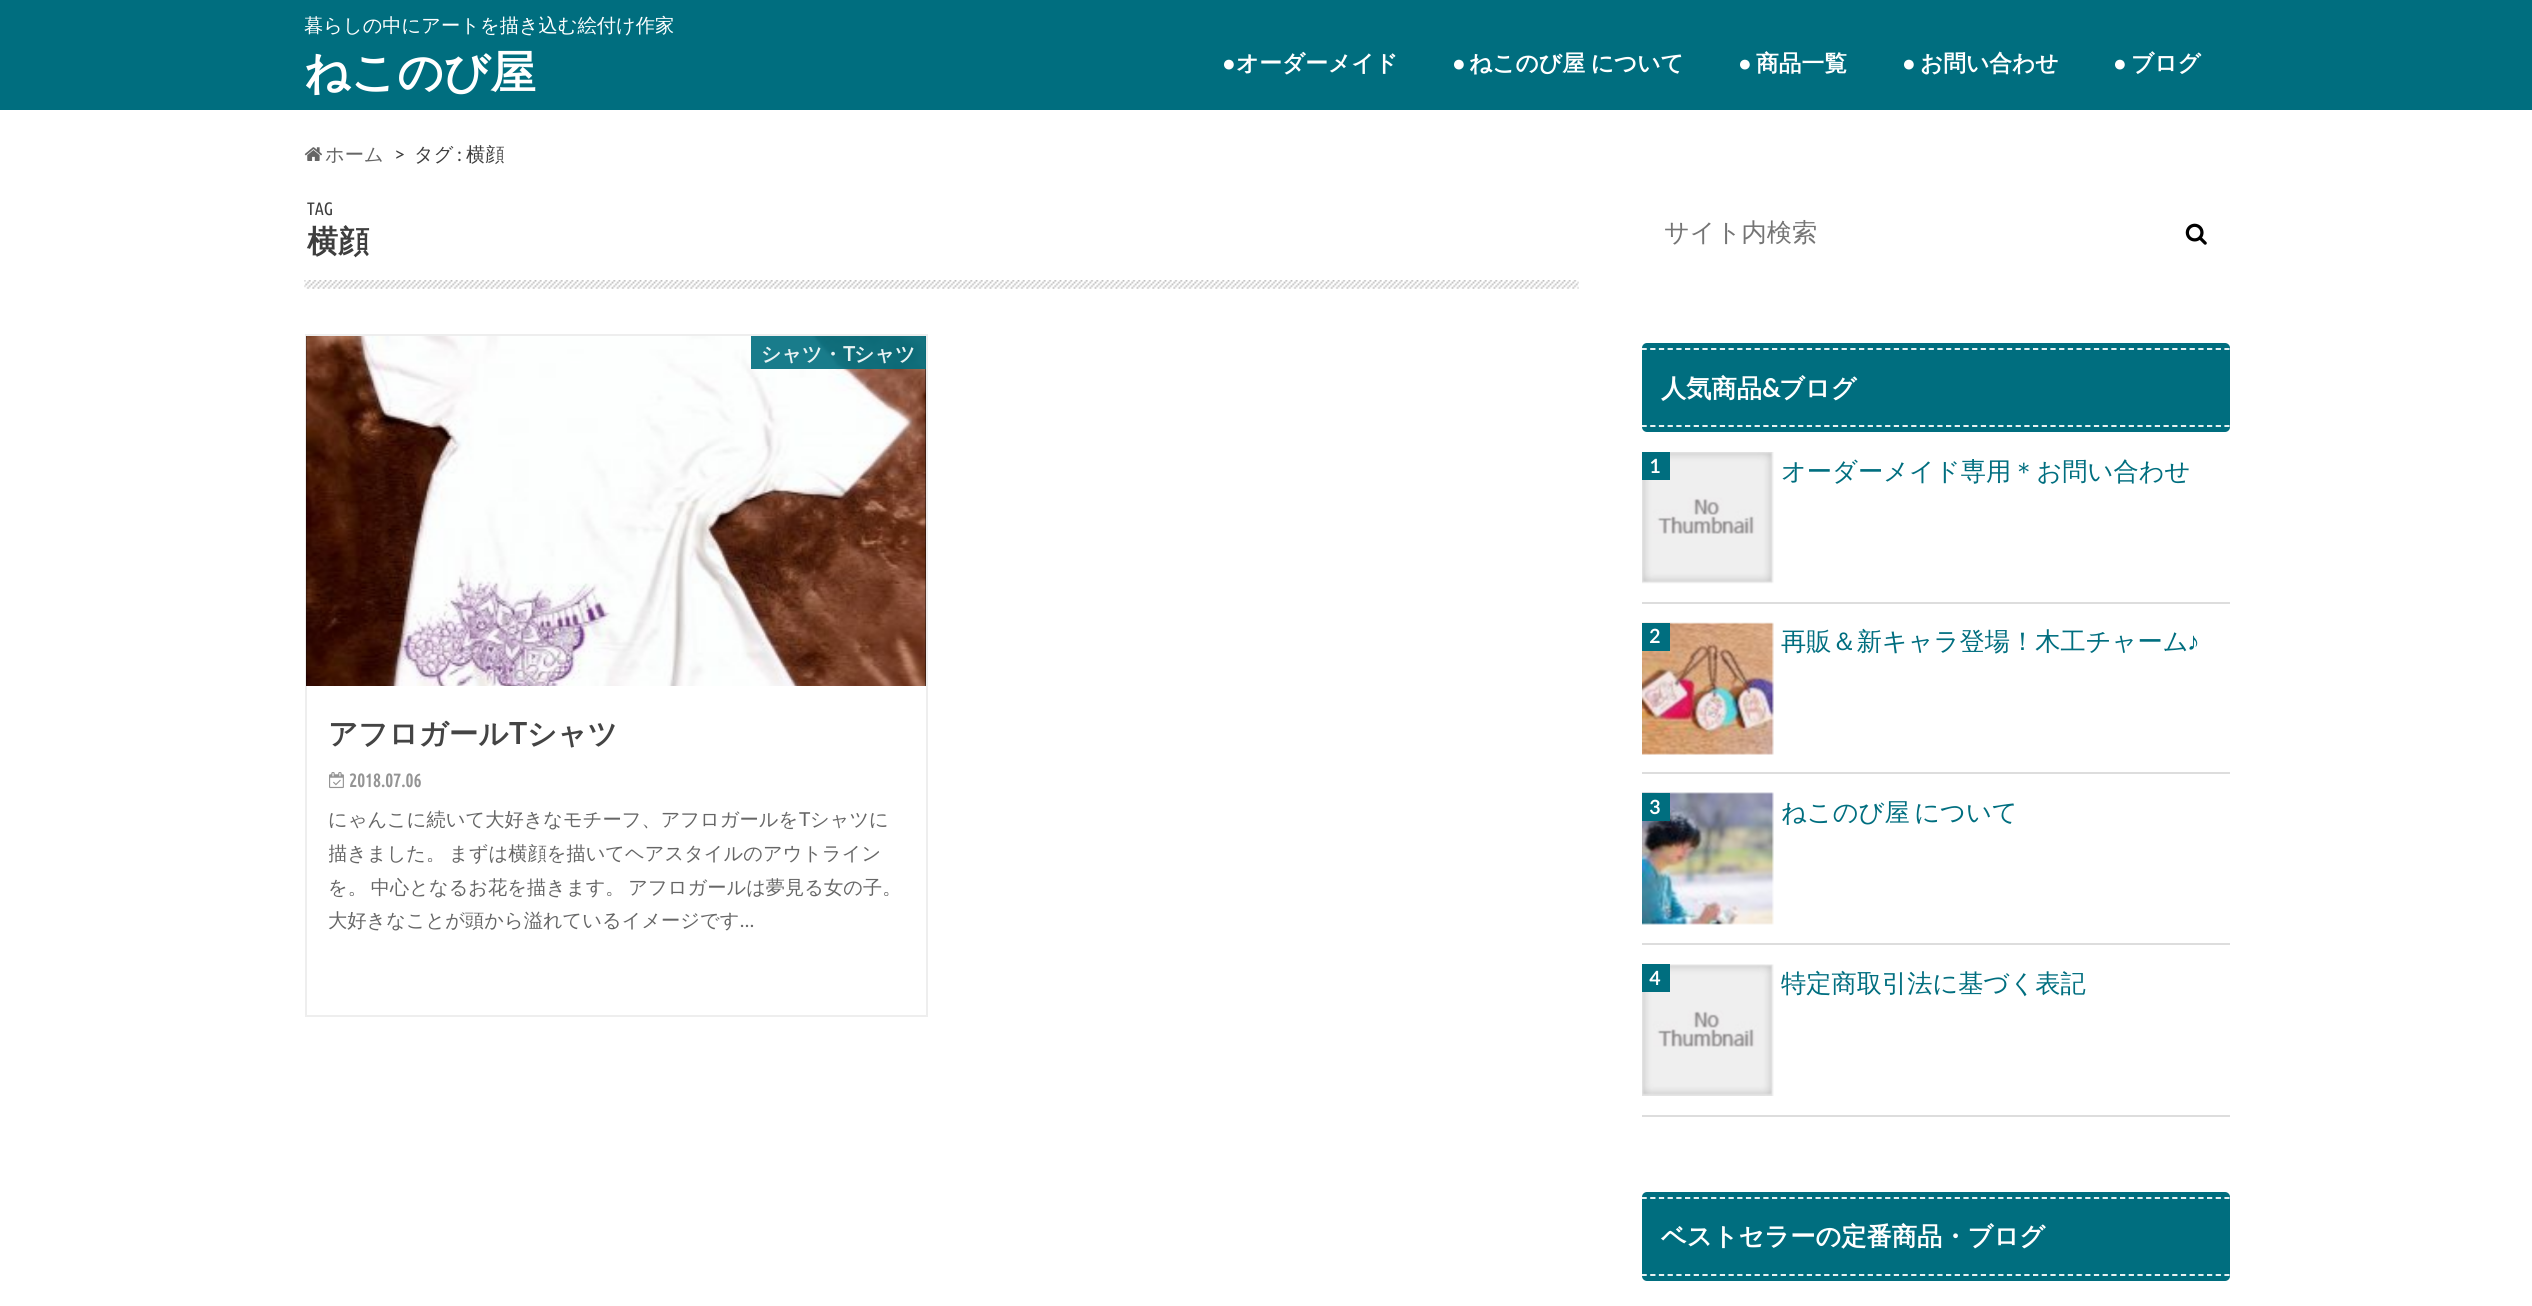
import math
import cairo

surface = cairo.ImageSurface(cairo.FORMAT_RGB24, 2532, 1306)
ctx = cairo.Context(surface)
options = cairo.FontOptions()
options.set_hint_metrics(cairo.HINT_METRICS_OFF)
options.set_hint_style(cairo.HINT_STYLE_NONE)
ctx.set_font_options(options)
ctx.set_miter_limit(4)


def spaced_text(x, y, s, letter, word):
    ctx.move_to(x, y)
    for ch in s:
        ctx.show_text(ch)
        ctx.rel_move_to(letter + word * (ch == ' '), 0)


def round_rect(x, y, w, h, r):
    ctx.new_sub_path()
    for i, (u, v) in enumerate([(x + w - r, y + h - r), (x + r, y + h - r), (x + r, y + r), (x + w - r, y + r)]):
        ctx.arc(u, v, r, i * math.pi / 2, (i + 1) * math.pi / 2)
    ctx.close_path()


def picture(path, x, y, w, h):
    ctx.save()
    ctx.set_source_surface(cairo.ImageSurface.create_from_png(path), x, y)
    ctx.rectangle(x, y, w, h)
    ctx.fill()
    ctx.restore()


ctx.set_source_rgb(1, 1, 1)
ctx.paint()
ctx.set_source_rgb(0, 0.431, 0.498)
ctx.rectangle(0, 0, 2532, 110)
ctx.fill()
ctx.select_font_face("WenQuanYi Zen Hei Medium")
ctx.set_font_size(19.25)
ctx.set_source_rgb(1, 1, 1)
ctx.move_to(304, 32)
ctx.show_text("暮らしの中にアートを描き込む絵付け作家")
ctx.select_font_face("WenQuanYi Zen Hei", cairo.FONT_SLANT_NORMAL, cairo.FONT_WEIGHT_BOLD)
ctx.set_font_size(45.5)
ctx.move_to(304, 88)
ctx.show_text("ねこのび屋")
ctx.select_font_face("Liberation Sans", cairo.FONT_SLANT_NORMAL, cairo.FONT_WEIGHT_BOLD)
ctx.set_font_size(22.75)
ctx.move_to(1222, 71)
ctx.show_text("●")
ctx.select_font_face("WenQuanYi Zen Hei", cairo.FONT_SLANT_NORMAL, cairo.FONT_WEIGHT_BOLD)
ctx.move_to(1236, 71)
ctx.show_text("オーダーメイド")
ctx.select_font_face("Liberation Sans", cairo.FONT_SLANT_NORMAL, cairo.FONT_WEIGHT_BOLD)
ctx.move_to(1452, 71)
ctx.show_text("●")
ctx.select_font_face("WenQuanYi Zen Hei", cairo.FONT_SLANT_NORMAL, cairo.FONT_WEIGHT_BOLD)
spaced_text(1469, 71, "ねこのび屋 について", 0, -1)
ctx.select_font_face("Liberation Sans", cairo.FONT_SLANT_NORMAL, cairo.FONT_WEIGHT_BOLD)
ctx.move_to(1738, 71)
ctx.show_text("●")
ctx.select_font_face("WenQuanYi Zen Hei", cairo.FONT_SLANT_NORMAL, cairo.FONT_WEIGHT_BOLD)
ctx.move_to(1756, 71)
ctx.show_text("商品一覧")
ctx.select_font_face("Liberation Sans", cairo.FONT_SLANT_NORMAL, cairo.FONT_WEIGHT_BOLD)
ctx.move_to(1902, 71)
ctx.show_text("●")
ctx.select_font_face("WenQuanYi Zen Hei", cairo.FONT_SLANT_NORMAL, cairo.FONT_WEIGHT_BOLD)
ctx.move_to(1920, 71)
ctx.show_text("お問い合わせ")
ctx.select_font_face("Liberation Sans", cairo.FONT_SLANT_NORMAL, cairo.FONT_WEIGHT_BOLD)
ctx.move_to(2113, 71)
ctx.show_text("●")
ctx.select_font_face("WenQuanYi Zen Hei", cairo.FONT_SLANT_NORMAL, cairo.FONT_WEIGHT_BOLD)
ctx.move_to(2131, 71)
ctx.show_text("ブログ")
picture("img1.png", 304, 147, 18, 14)
ctx.select_font_face("WenQuanYi Zen Hei Medium")
ctx.set_font_size(19.25)
ctx.set_source_rgb(0.4, 0.4, 0.4)
ctx.move_to(325, 161)
ctx.show_text("ホーム")
ctx.select_font_face("Lato")
ctx.set_source_rgb(0.243, 0.243, 0.243)
ctx.move_to(394, 161)
ctx.show_text(">")
ctx.select_font_face("WenQuanYi Zen Hei Medium")
ctx.move_to(414, 161)
ctx.show_text("タグ")
ctx.select_font_face("Lato")
ctx.move_to(457, 161)
ctx.show_text(":")
ctx.select_font_face("WenQuanYi Zen Hei Medium")
ctx.move_to(466, 161)
ctx.show_text("横顔")
picture("img2.png", 304, 280, 1275, 9)
ctx.select_font_face("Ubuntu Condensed")
ctx.set_font_size(18)
ctx.move_to(307, 215)
ctx.show_text("TAG")
ctx.select_font_face("WenQuanYi Zen Hei", cairo.FONT_SLANT_NORMAL, cairo.FONT_WEIGHT_BOLD)
ctx.set_font_size(31)
ctx.move_to(307, 252)
ctx.show_text("横顔")
ctx.rectangle(306, 335, 621, 681)
ctx.set_source_rgb(0.933, 0.933, 0.933)
ctx.stroke()
ctx.set_source_rgb(0, 0, 0)
ctx.rectangle(306, 336, 620, 350)
ctx.fill()
picture("img3.png", 306, 336, 620, 350)
ctx.set_source_rgba(0, 0.431, 0.498, 0.9)
ctx.rectangle(751, 336, 175, 33)
ctx.fill()
ctx.set_font_size(20)
ctx.set_source_rgb(0.91, 0.949, 0.953)
ctx.move_to(761, 361)
ctx.show_text("シャツ・")
ctx.select_font_face("Lato", cairo.FONT_SLANT_NORMAL, cairo.FONT_WEIGHT_BOLD)
ctx.move_to(843, 361)
ctx.show_text("T")
ctx.select_font_face("WenQuanYi Zen Hei", cairo.FONT_SLANT_NORMAL, cairo.FONT_WEIGHT_BOLD)
ctx.move_to(854, 361)
ctx.show_text("シャツ")
ctx.set_font_size(29.5)
ctx.set_source_rgb(0.267, 0.267, 0.267)
ctx.move_to(328, 744)
ctx.show_text("アフロガール")
ctx.select_font_face("Lato", cairo.FONT_SLANT_NORMAL, cairo.FONT_WEIGHT_BOLD)
ctx.move_to(509, 744)
ctx.show_text("T")
ctx.select_font_face("WenQuanYi Zen Hei", cairo.FONT_SLANT_NORMAL, cairo.FONT_WEIGHT_BOLD)
ctx.move_to(527, 744)
ctx.show_text("シャツ")
picture("img4.png", 329, 772, 15, 17)
ctx.select_font_face("Ubuntu Condensed", cairo.FONT_SLANT_NORMAL, cairo.FONT_WEIGHT_BOLD)
ctx.set_font_size(18.5)
ctx.set_source_rgb(0.58, 0.58, 0.58)
ctx.move_to(349, 787)
ctx.show_text("2018.07.06")
ctx.select_font_face("WenQuanYi Zen Hei Medium")
ctx.set_font_size(19.25)
ctx.set_source_rgb(0.4, 0.4, 0.4)
ctx.move_to(328, 826)
ctx.show_text("にゃんこに続いて大好きなモチーフ、アフロガールを")
ctx.select_font_face("Lato")
ctx.move_to(799, 826)
ctx.show_text("T")
ctx.select_font_face("WenQuanYi Zen Hei Medium")
ctx.move_to(810, 826)
ctx.show_text("シャツに")
ctx.save()
ctx.rectangle(329, 697, 574, 245)
ctx.clip()
spaced_text(328, 860, "描きました。 まずは横顔を描いてヘアスタイルのアウトライン", 0, -2)
ctx.restore()
spaced_text(328, 894, "を。 中心となるお花を描きます。 アフロガールは夢見る女の子。", 0, -2)
ctx.move_to(328, 927)
ctx.show_text("大好きなことが頭から溢れているイメージです")
ctx.select_font_face("Lato")
ctx.move_to(740, 927)
ctx.show_text("…")
ctx.select_font_face("WenQuanYi Zen Hei Medium")
ctx.set_font_size(25.25)
ctx.set_source_rgb(0.459, 0.459, 0.459)
ctx.move_to(1664, 241)
ctx.show_text("サイト内検索")
picture("img5.png", 2185, 223, 22, 22)
ctx.set_source_rgb(0, 0.431, 0.498)
round_rect(1642, 343, 588, 89, 5)
ctx.fill()
ctx.new_path()
ctx.move_to(1641.5, 349)
ctx.line_to(2229.5, 349)
ctx.set_source_rgb(1, 1, 1)
ctx.set_line_width(1.8)
ctx.set_dash([5.25, 3.45])
ctx.stroke()
ctx.new_path()
ctx.move_to(1641.5, 426)
ctx.line_to(2229.5, 426)
ctx.stroke()
ctx.select_font_face("WenQuanYi Zen Hei", cairo.FONT_SLANT_NORMAL, cairo.FONT_WEIGHT_BOLD)
ctx.move_to(1661, 397)
ctx.show_text("人気商品")
ctx.select_font_face("Lato", cairo.FONT_SLANT_NORMAL, cairo.FONT_WEIGHT_BOLD)
ctx.move_to(1762, 397)
ctx.show_text("&")
ctx.select_font_face("WenQuanYi Zen Hei", cairo.FONT_SLANT_NORMAL, cairo.FONT_WEIGHT_BOLD)
ctx.move_to(1779, 397)
ctx.show_text("ブログ")
ctx.set_source_rgb(0.867, 0.867, 0.867)
ctx.rectangle(1642, 602, 588, 2)
ctx.fill()
picture("img6.png", 1642, 452, 132, 132)
ctx.set_source_rgb(0, 0.431, 0.498)
ctx.rectangle(1642, 452, 28, 28)
ctx.fill()
ctx.select_font_face("Lato", cairo.FONT_SLANT_NORMAL, cairo.FONT_WEIGHT_BOLD)
ctx.set_font_size(19)
ctx.set_source_rgb(1, 1, 1)
ctx.move_to(1649, 473)
ctx.show_text("1")
ctx.select_font_face("WenQuanYi Zen Hei Medium")
ctx.set_font_size(25.25)
ctx.set_source_rgb(0, 0.431, 0.498)
ctx.move_to(1781, 480)
ctx.show_text("オーダーメイド専用＊お問い合わせ")
ctx.set_source_rgb(0.867, 0.867, 0.867)
ctx.rectangle(1642, 772, 588, 2)
ctx.fill()
picture("img7.png", 1642, 622, 132, 133)
ctx.set_source_rgb(0, 0.431, 0.498)
ctx.rectangle(1642, 623, 28, 28)
ctx.fill()
ctx.select_font_face("Lato", cairo.FONT_SLANT_NORMAL, cairo.FONT_WEIGHT_BOLD)
ctx.set_font_size(19)
ctx.set_source_rgb(1, 1, 1)
ctx.move_to(1649, 643)
ctx.show_text("2")
ctx.select_font_face("WenQuanYi Zen Hei Medium")
ctx.set_font_size(25.25)
ctx.set_source_rgb(0, 0.431, 0.498)
ctx.move_to(1781, 650)
ctx.show_text("再販＆新キャラ登場！木工チャーム")
ctx.select_font_face("Liberation Sans")
ctx.move_to(2187, 650)
ctx.show_text("♪")
ctx.set_source_rgb(0.867, 0.867, 0.867)
ctx.rectangle(1642, 943, 588, 2)
ctx.fill()
picture("img8.png", 1642, 792, 132, 133)
ctx.set_source_rgb(0, 0.431, 0.498)
ctx.rectangle(1642, 793, 28, 28)
ctx.fill()
ctx.select_font_face("Lato", cairo.FONT_SLANT_NORMAL, cairo.FONT_WEIGHT_BOLD)
ctx.set_font_size(19)
ctx.set_source_rgb(1, 1, 1)
ctx.move_to(1649, 814)
ctx.show_text("3")
ctx.select_font_face("WenQuanYi Zen Hei Medium")
ctx.set_font_size(25.25)
ctx.set_source_rgb(0, 0.431, 0.498)
spaced_text(1781, 821, "ねこのび屋 について", 0, -3)
ctx.set_source_rgb(0.867, 0.867, 0.867)
ctx.rectangle(1642, 1115, 588, 2)
ctx.fill()
picture("img9.png", 1642, 964, 132, 132)
ctx.set_source_rgb(0, 0.431, 0.498)
ctx.rectangle(1642, 964, 28, 28)
ctx.fill()
ctx.select_font_face("Lato", cairo.FONT_SLANT_NORMAL, cairo.FONT_WEIGHT_BOLD)
ctx.set_font_size(19)
ctx.set_source_rgb(1, 1, 1)
ctx.move_to(1649, 985)
ctx.show_text("4")
ctx.select_font_face("WenQuanYi Zen Hei Medium")
ctx.set_font_size(25.25)
ctx.set_source_rgb(0, 0.431, 0.498)
ctx.move_to(1781, 992)
ctx.show_text("特定商取引法に基づく表記")
round_rect(1642, 1192, 588, 89, 5)
ctx.fill()
ctx.new_path()
ctx.move_to(1641.5, 1198)
ctx.line_to(2229.5, 1198)
ctx.set_source_rgb(1, 1, 1)
ctx.stroke()
ctx.new_path()
ctx.move_to(1641.5, 1275)
ctx.line_to(2229.5, 1275)
ctx.stroke()
ctx.select_font_face("WenQuanYi Zen Hei", cairo.FONT_SLANT_NORMAL, cairo.FONT_WEIGHT_BOLD)
ctx.move_to(1661, 1245)
ctx.show_text("ベストセラーの定番商品・ブログ")
surface.write_to_png("page.png")
